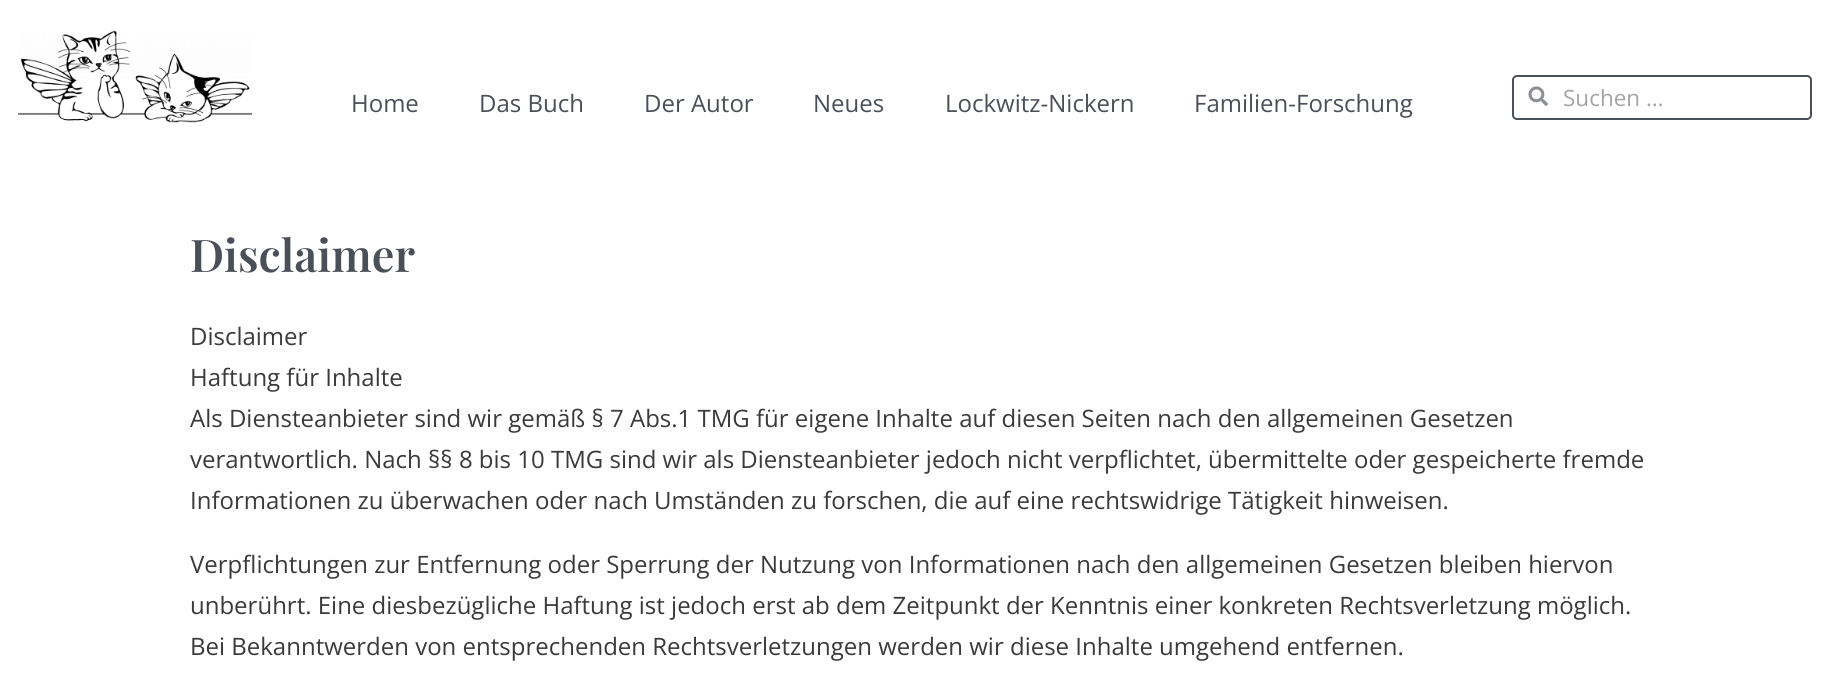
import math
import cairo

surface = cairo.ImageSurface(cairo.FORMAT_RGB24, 1835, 699)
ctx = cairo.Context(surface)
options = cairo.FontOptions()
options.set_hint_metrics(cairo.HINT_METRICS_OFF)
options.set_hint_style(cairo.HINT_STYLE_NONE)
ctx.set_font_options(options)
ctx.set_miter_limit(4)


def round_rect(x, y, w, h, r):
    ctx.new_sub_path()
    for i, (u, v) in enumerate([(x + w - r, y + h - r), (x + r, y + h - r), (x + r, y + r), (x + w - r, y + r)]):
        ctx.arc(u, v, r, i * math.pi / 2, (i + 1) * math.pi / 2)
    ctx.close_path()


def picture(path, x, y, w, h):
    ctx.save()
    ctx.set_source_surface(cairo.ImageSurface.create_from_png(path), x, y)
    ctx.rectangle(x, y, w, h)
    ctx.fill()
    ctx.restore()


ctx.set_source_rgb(1, 1, 1)
ctx.paint()
picture("img1.png", 18, 30, 234, 93)
ctx.select_font_face("Open Sans")
ctx.set_font_size(24)
ctx.set_source_rgb(0.294, 0.31, 0.345)
ctx.move_to(351, 112)
ctx.show_text("Home")
ctx.move_to(479, 112)
ctx.show_text("Das Buch")
ctx.move_to(644, 112)
ctx.show_text("Der Autor")
ctx.move_to(813, 112)
ctx.show_text("Neues")
ctx.move_to(945, 112)
ctx.show_text("Lockwitz-Nickern")
ctx.move_to(1194, 112)
ctx.show_text("Familien-Forschung")
round_rect(1513, 76, 298, 43, 4)
ctx.stroke()
picture("img2.png", 1528, 86, 20, 20)
ctx.set_font_size(22.5)
ctx.set_source_rgb(0.639, 0.639, 0.639)
ctx.move_to(1563, 106)
ctx.show_text("Suchen …")
ctx.select_font_face("Playfair Display SemiBold")
ctx.set_font_size(45)
ctx.set_source_rgb(0.294, 0.31, 0.345)
ctx.move_to(190, 272)
ctx.show_text("Disclaimer")
ctx.select_font_face("Open Sans")
ctx.set_font_size(24)
ctx.set_source_rgb(0.227, 0.227, 0.227)
ctx.move_to(190, 345)
ctx.show_text("Disclaimer")
ctx.move_to(190, 386)
ctx.show_text("Haftung für Inhalte")
ctx.move_to(190, 427)
ctx.show_text("Als Diensteanbieter sind wir gemäß § 7 Abs.1 TMG für eigene Inhalte auf diesen Seiten nach den allgemeinen Gesetzen")
ctx.move_to(190, 468)
ctx.show_text("verantwortlich. Nach §§ 8 bis 10 TMG sind wir als Diensteanbieter jedoch nicht verpflichtet, übermittelte oder gespeicherte fremde")
ctx.move_to(190, 509)
ctx.show_text("Informationen zu überwachen oder nach Umständen zu forschen, die auf eine rechtswidrige Tätigkeit hinweisen.")
ctx.move_to(190, 573)
ctx.show_text("Verpflichtungen zur Entfernung oder Sperrung der Nutzung von Informationen nach den allgemeinen Gesetzen bleiben hiervon")
ctx.move_to(190, 614)
ctx.show_text("unberührt. Eine diesbezügliche Haftung ist jedoch erst ab dem Zeitpunkt der Kenntnis einer konkreten Rechtsverletzung möglich.")
ctx.move_to(190, 655)
ctx.show_text("Bei Bekanntwerden von entsprechenden Rechtsverletzungen werden wir diese Inhalte umgehend entfernen.")
surface.write_to_png("page.png")
